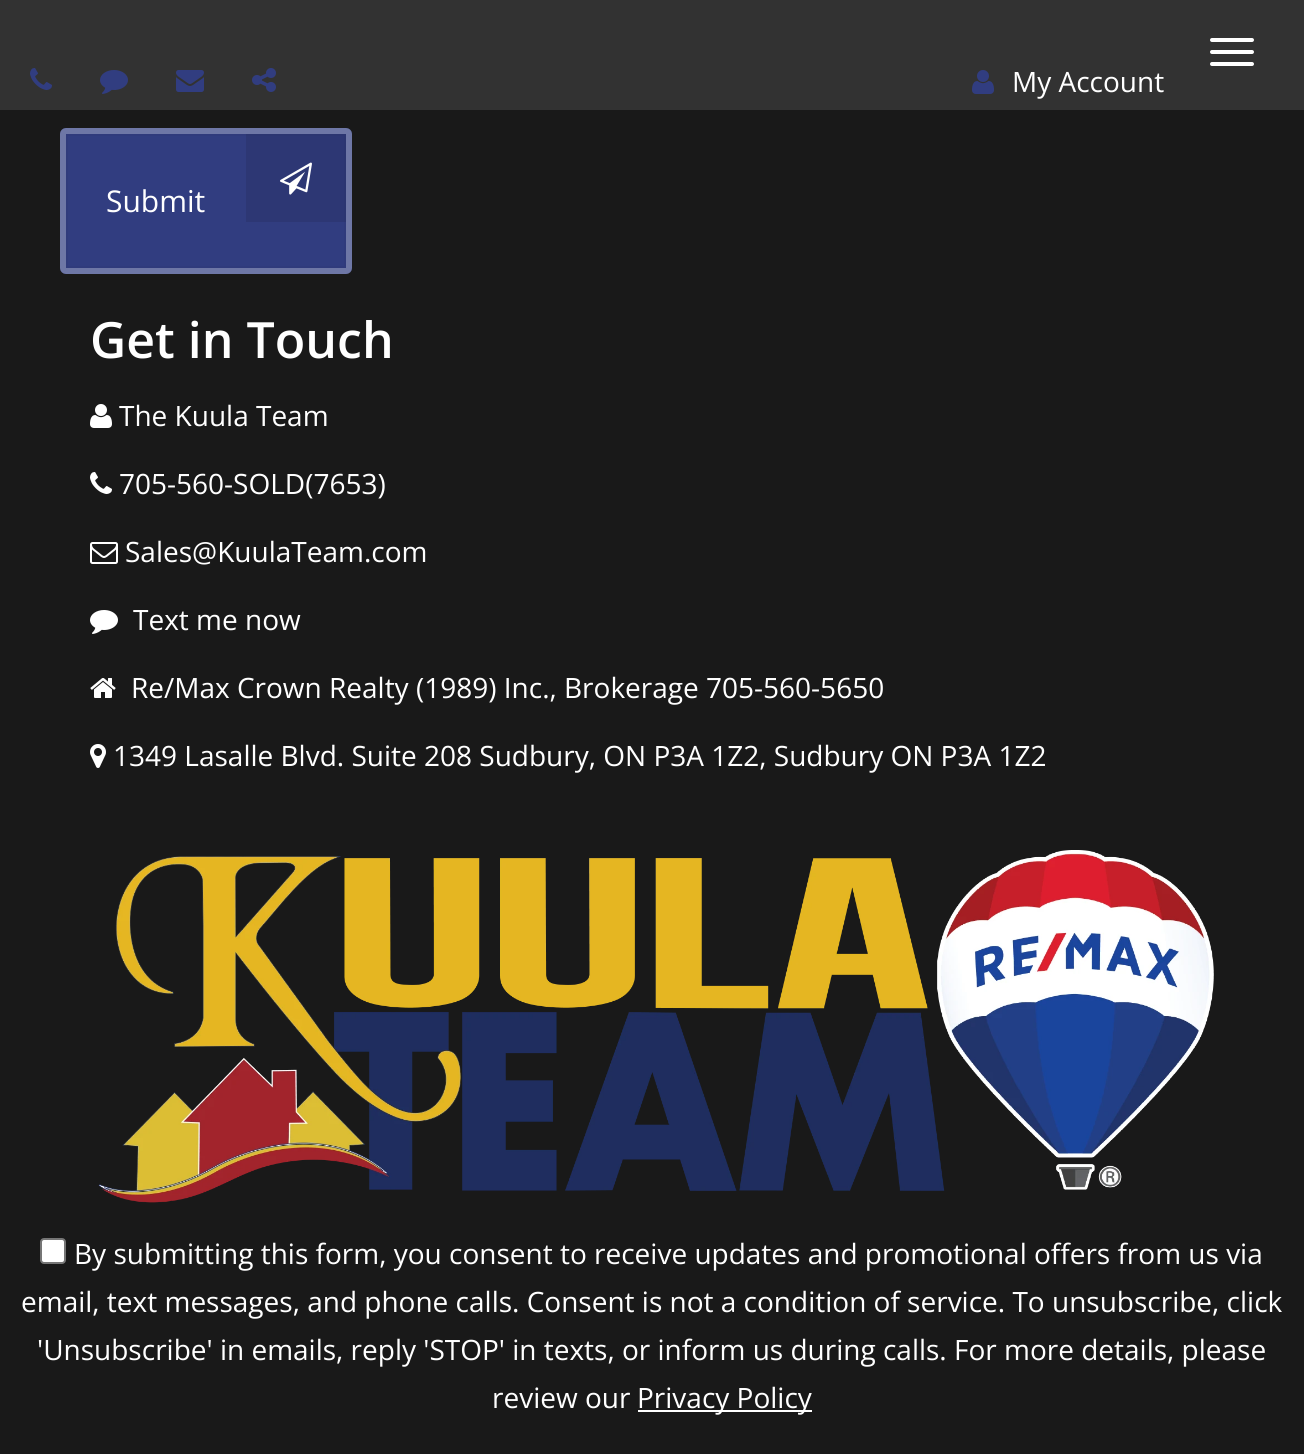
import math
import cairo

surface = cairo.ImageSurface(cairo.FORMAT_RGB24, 1304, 1454)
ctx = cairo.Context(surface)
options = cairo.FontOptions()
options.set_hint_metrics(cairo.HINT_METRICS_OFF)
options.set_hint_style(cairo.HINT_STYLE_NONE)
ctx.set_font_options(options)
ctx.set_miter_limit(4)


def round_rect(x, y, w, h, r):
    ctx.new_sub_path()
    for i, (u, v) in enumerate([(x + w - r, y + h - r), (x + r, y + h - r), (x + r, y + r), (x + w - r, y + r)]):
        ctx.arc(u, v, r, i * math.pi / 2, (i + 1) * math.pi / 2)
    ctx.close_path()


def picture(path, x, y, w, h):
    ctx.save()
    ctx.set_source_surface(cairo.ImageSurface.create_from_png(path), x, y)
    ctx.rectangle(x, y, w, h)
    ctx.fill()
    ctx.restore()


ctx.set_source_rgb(0.098, 0.098, 0.098)
ctx.paint()
ctx.set_source_rgb(0.196, 0.196, 0.196)
ctx.rectangle(0, 0, 1304, 110)
ctx.fill()
ctx.set_source_rgb(1, 1, 1)
round_rect(1210, 38, 44, 4, 2)
ctx.fill()
round_rect(1210, 50, 44, 4, 2)
ctx.fill()
round_rect(1210, 62, 44, 4, 2)
ctx.fill()
picture("img1.png", 30, 68, 22, 22)
picture("img2.png", 100, 70, 28, 24)
picture("img3.png", 176, 70, 28, 22)
picture("img4.png", 252, 68, 24, 24)
picture("img5.png", 972, 70, 22, 24)
ctx.select_font_face("Open Sans")
ctx.set_font_size(28)
ctx.move_to(1012, 92)
ctx.show_text("My Account")
ctx.set_source_rgb(0.192, 0.239, 0.502)
round_rect(60, 128, 292, 146, 6)
ctx.fill()
ctx.rectangle(67, 135, 278, 132)
ctx.set_source_rgb(0.188, 0.231, 0.486)
ctx.stroke()
round_rect(63, 131, 286, 140, 3)
ctx.set_source_rgba(1, 1, 1, 0.3)
ctx.set_line_width(6)
ctx.stroke()
ctx.set_font_size(30)
ctx.set_source_rgb(1, 1, 1)
ctx.move_to(106, 212)
ctx.show_text("Submit")
ctx.set_source_rgba(0, 0, 0, 0.09)
ctx.rectangle(246, 134, 100, 88)
ctx.fill()
picture("img6.png", 280, 162, 32, 33)
ctx.select_font_face("Open Sans SemiBold")
ctx.set_font_size(50)
ctx.set_source_rgb(1, 1, 1)
ctx.move_to(90, 358)
ctx.show_text("Get in Touch")
picture("img7.png", 90, 404, 22, 24)
ctx.select_font_face("Open Sans")
ctx.set_font_size(28)
ctx.move_to(119, 426)
ctx.show_text("The Kuula Team")
picture("img8.png", 90, 472, 22, 22)
ctx.move_to(119, 494)
ctx.show_text("705-560-SOLD(7653)")
picture("img9.png", 90, 542, 28, 22)
ctx.move_to(125, 562)
ctx.show_text("Sales@KuulaTeam.com")
picture("img10.png", 90, 610, 28, 24)
ctx.move_to(133, 630)
ctx.show_text("Text me now")
picture("img11.png", 90, 678, 26, 20)
ctx.move_to(131, 698)
ctx.show_text("Re/Max Crown Realty (1989) Inc., Brokerage 705-560-5650")
picture("img12.png", 90, 744, 16, 24)
ctx.move_to(113, 766)
ctx.show_text("1349 Lasalle Blvd. Suite 208 Sudbury, ON P3A 1Z2, Sudbury ON P3A 1Z2")
picture("img13.png", 98, 850, 1116, 353)
round_rect(41, 1239, 24, 24, 3)
ctx.fill_preserve()
ctx.set_source_rgb(0.463, 0.463, 0.463)
ctx.set_line_width(2)
ctx.stroke()
ctx.set_source_rgb(1, 1, 1)
ctx.move_to(74, 1264)
ctx.show_text("By submitting this form, you consent to receive updates and promotional offers from us via")
ctx.move_to(21, 1312)
ctx.show_text("email, text messages, and phone calls. Consent is not a condition of service. To unsubscribe, click")
ctx.move_to(37, 1360)
ctx.show_text("'Unsubscribe' in emails, reply 'STOP' in texts, or inform us during calls. For more details, please")
ctx.move_to(492, 1408)
ctx.show_text("review our")
ctx.rectangle(638, 1410, 174, 2)
ctx.fill()
ctx.move_to(637, 1408)
ctx.show_text("Privacy Policy")
surface.write_to_png("page.png")
